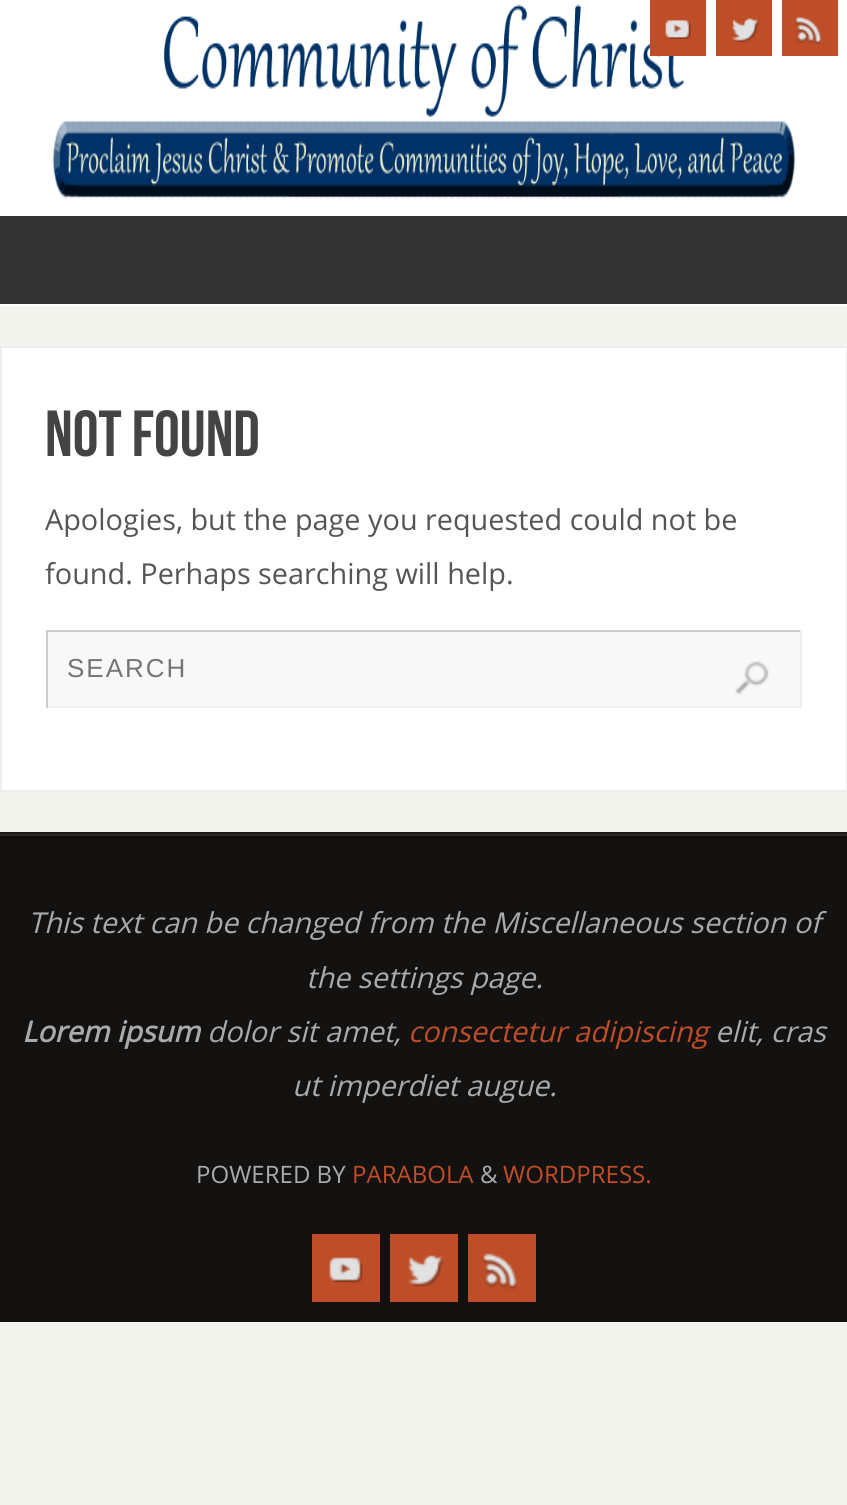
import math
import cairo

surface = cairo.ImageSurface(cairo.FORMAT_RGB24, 847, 1505)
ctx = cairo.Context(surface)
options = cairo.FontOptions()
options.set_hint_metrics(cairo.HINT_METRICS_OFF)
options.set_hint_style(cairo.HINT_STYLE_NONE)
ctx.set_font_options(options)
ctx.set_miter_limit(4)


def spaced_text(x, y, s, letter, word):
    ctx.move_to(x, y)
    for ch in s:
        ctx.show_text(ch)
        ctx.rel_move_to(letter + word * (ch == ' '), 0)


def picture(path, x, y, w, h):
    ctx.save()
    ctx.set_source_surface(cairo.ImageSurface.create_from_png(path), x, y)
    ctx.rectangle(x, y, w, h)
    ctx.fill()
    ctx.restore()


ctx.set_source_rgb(0.953, 0.953, 0.933)
ctx.paint()
ctx.set_source_rgb(1, 1, 1)
ctx.rectangle(0, 0, 847, 306)
ctx.fill()
picture("img4.png", 52, 4, 744, 195)
ctx.set_source_rgb(0.749, 0.302, 0.157)
ctx.rectangle(650, 0, 56, 56)
ctx.fill()
picture("img1.png", 665, 20, 26, 19)
ctx.rectangle(716, 0, 56, 56)
ctx.fill()
picture("img2.png", 731, 18, 29, 25)
ctx.rectangle(782, 0, 56, 56)
ctx.fill()
picture("img3.png", 795, 17, 27, 28)
ctx.set_source_rgb(0.2, 0.2, 0.2)
ctx.rectangle(0, 216, 847, 88)
ctx.fill()
ctx.set_source_rgb(1, 1, 1)
ctx.rectangle(1, 347, 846, 444)
ctx.fill_preserve()
ctx.set_source_rgb(0.933, 0.933, 0.933)
ctx.stroke()
ctx.select_font_face("Bebas Neue")
ctx.set_font_size(65)
ctx.set_source_rgb(0.267, 0.267, 0.267)
ctx.move_to(45, 456)
ctx.show_text("Not Found")
ctx.select_font_face("Open Sans")
ctx.set_font_size(28.8)
ctx.set_source_rgb(0.333, 0.333, 0.333)
ctx.move_to(45, 530)
ctx.show_text("Apologies, but the page you requested could not be")
ctx.move_to(45, 584)
ctx.show_text("found. Perhaps searching will help.")
ctx.set_source_rgb(0.969, 0.969, 0.969)
ctx.rectangle(48, 632, 752, 74)
ctx.fill()
ctx.set_source_rgb(0.8, 0.8, 0.8)
ctx.rectangle(46, 630, 756, 2)
ctx.fill()
ctx.set_source_rgb(0.933, 0.933, 0.933)
ctx.rectangle(800, 630, 2, 78)
ctx.fill()
ctx.rectangle(46, 706, 756, 2)
ctx.fill()
ctx.set_source_rgb(0.8, 0.8, 0.8)
ctx.rectangle(46, 630, 2, 78)
ctx.fill()
ctx.select_font_face("Liberation Sans")
ctx.set_font_size(26)
ctx.set_source_rgb(0.459, 0.459, 0.459)
spaced_text(67, 677, "SEARCH", 2, 0)
picture("img5.png", 735, 661, 34, 34)
ctx.set_source_rgb(0.102, 0.098, 0.09)
ctx.rectangle(0, 832, 847, 2)
ctx.fill()
ctx.set_source_rgb(0.075, 0.071, 0.067)
ctx.rectangle(0, 836, 847, 486)
ctx.fill()
ctx.set_source_rgb(0.169, 0.165, 0.161)
ctx.rectangle(0, 834, 847, 2)
ctx.fill()
ctx.select_font_face("Open Sans", cairo.FONT_SLANT_ITALIC)
ctx.set_font_size(28.8)
ctx.set_source_rgb(0.667, 0.667, 0.667)
ctx.move_to(28, 933)
ctx.show_text("This text can be changed from the Miscellaneous section of")
ctx.move_to(306, 988)
ctx.show_text("the settings page.")
ctx.select_font_face("Open Sans", cairo.FONT_SLANT_ITALIC, cairo.FONT_WEIGHT_BOLD)
ctx.move_to(22, 1042)
ctx.show_text("Lorem ipsum")
ctx.select_font_face("Open Sans", cairo.FONT_SLANT_ITALIC)
ctx.move_to(207, 1042)
ctx.show_text("dolor sit amet,")
ctx.set_source_rgb(0.749, 0.302, 0.157)
ctx.move_to(408, 1042)
ctx.show_text("consectetur adipiscing")
ctx.set_source_rgb(0.667, 0.667, 0.667)
ctx.move_to(715, 1042)
ctx.show_text("elit, cras")
ctx.move_to(292, 1096)
ctx.show_text("ut imperdiet augue.")
ctx.select_font_face("Open Sans")
ctx.set_font_size(24)
ctx.move_to(196, 1183)
ctx.show_text("POWERED BY")
ctx.set_source_rgb(0.749, 0.302, 0.157)
ctx.move_to(352, 1183)
ctx.show_text("PARABOLA")
ctx.set_source_rgb(0.667, 0.667, 0.667)
ctx.move_to(480, 1183)
ctx.show_text("&")
ctx.set_source_rgb(0.749, 0.302, 0.157)
ctx.move_to(503, 1183)
ctx.show_text("WORDPRESS.")
ctx.rectangle(312, 1234, 68, 68)
ctx.fill()
picture("img6.png", 329, 1257, 34, 26)
ctx.rectangle(390, 1234, 68, 68)
ctx.fill()
picture("img7.png", 407, 1255, 38, 32)
ctx.rectangle(468, 1234, 68, 68)
ctx.fill()
picture("img8.png", 482, 1253, 36, 37)
surface.write_to_png("page.png")
